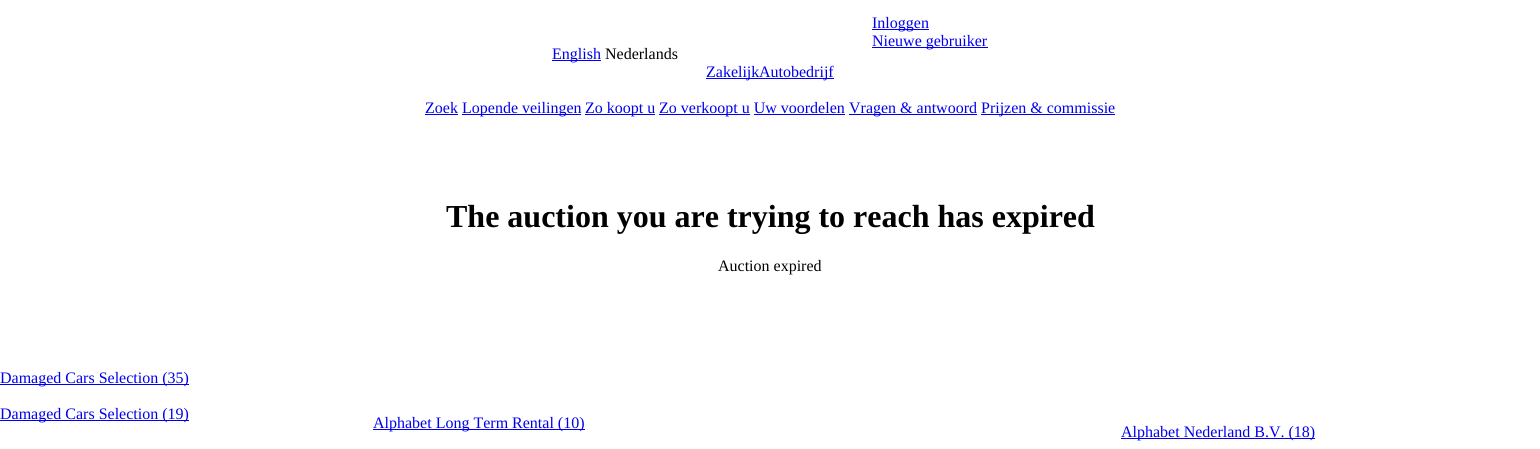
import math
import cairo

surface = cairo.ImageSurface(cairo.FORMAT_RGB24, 1540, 449)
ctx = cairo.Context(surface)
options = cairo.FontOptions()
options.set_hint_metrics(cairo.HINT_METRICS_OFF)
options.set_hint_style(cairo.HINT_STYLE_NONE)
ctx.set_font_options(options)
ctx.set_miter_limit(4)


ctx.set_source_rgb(1, 1, 1)
ctx.paint()
ctx.set_source_rgb(0, 0, 0.933)
ctx.rectangle(872, 29, 57, 1)
ctx.fill()
ctx.select_font_face("Liberation Serif")
ctx.set_font_size(16)
ctx.move_to(872, 28)
ctx.show_text("Inloggen")
ctx.rectangle(872, 47, 116, 1)
ctx.fill()
ctx.move_to(872, 46)
ctx.show_text("Nieuwe gebruiker")
ctx.rectangle(552, 60, 49, 1)
ctx.fill()
ctx.move_to(552, 59)
ctx.show_text("English")
ctx.set_source_rgb(0, 0, 0)
ctx.move_to(605, 59)
ctx.show_text("Nederlands")
ctx.set_source_rgb(0, 0, 0.933)
ctx.rectangle(706, 78, 53, 1)
ctx.fill()
ctx.move_to(706, 77)
ctx.show_text("Zakelijk")
ctx.rectangle(759, 78, 75, 1)
ctx.fill()
ctx.move_to(759, 77)
ctx.show_text("Autobedrijf")
ctx.move_to(425, 113)
ctx.show_text("Zoek")
ctx.rectangle(425, 114, 33, 1)
ctx.fill()
ctx.rectangle(462, 114, 119, 1)
ctx.fill()
ctx.move_to(462, 113)
ctx.show_text("Lopende veilingen")
ctx.rectangle(585, 114, 70, 1)
ctx.fill()
ctx.move_to(585, 113)
ctx.show_text("Zo koopt u")
ctx.rectangle(659, 114, 91, 1)
ctx.fill()
ctx.move_to(659, 113)
ctx.show_text("Zo verkoopt u Uw voordelen")
ctx.rectangle(849, 114, 128, 1)
ctx.fill()
ctx.move_to(849, 113)
ctx.show_text("Vragen & antwoord")
ctx.rectangle(981, 114, 134, 1)
ctx.fill()
ctx.move_to(981, 113)
ctx.show_text("Prijzen & commissie")
ctx.rectangle(754, 114, 91, 1)
ctx.fill()
ctx.select_font_face("Liberation Serif", cairo.FONT_SLANT_NORMAL, cairo.FONT_WEIGHT_BOLD)
ctx.set_font_size(32)
ctx.set_source_rgb(0, 0, 0)
ctx.move_to(446, 227)
ctx.show_text("The auction you are trying to reach has expired")
ctx.select_font_face("Liberation Serif")
ctx.set_font_size(16)
ctx.move_to(718, 271)
ctx.show_text("Auction expired")
ctx.set_source_rgb(0, 0, 0.933)
ctx.rectangle(0, 384, 189, 1)
ctx.fill()
ctx.move_to(0, 383)
ctx.show_text("Damaged Cars Selection (35)")
ctx.rectangle(0, 420, 189, 1)
ctx.fill()
ctx.move_to(0, 419)
ctx.show_text("Damaged Cars Selection (19)")
ctx.rectangle(373, 429, 212, 1)
ctx.fill()
ctx.move_to(373, 428)
ctx.show_text("Alphabet Long Term Rental (10)")
ctx.rectangle(1121, 438, 194, 1)
ctx.fill()
ctx.move_to(1121, 437)
ctx.show_text("Alphabet Nederland B.V. (18)")
surface.write_to_png("page.png")
